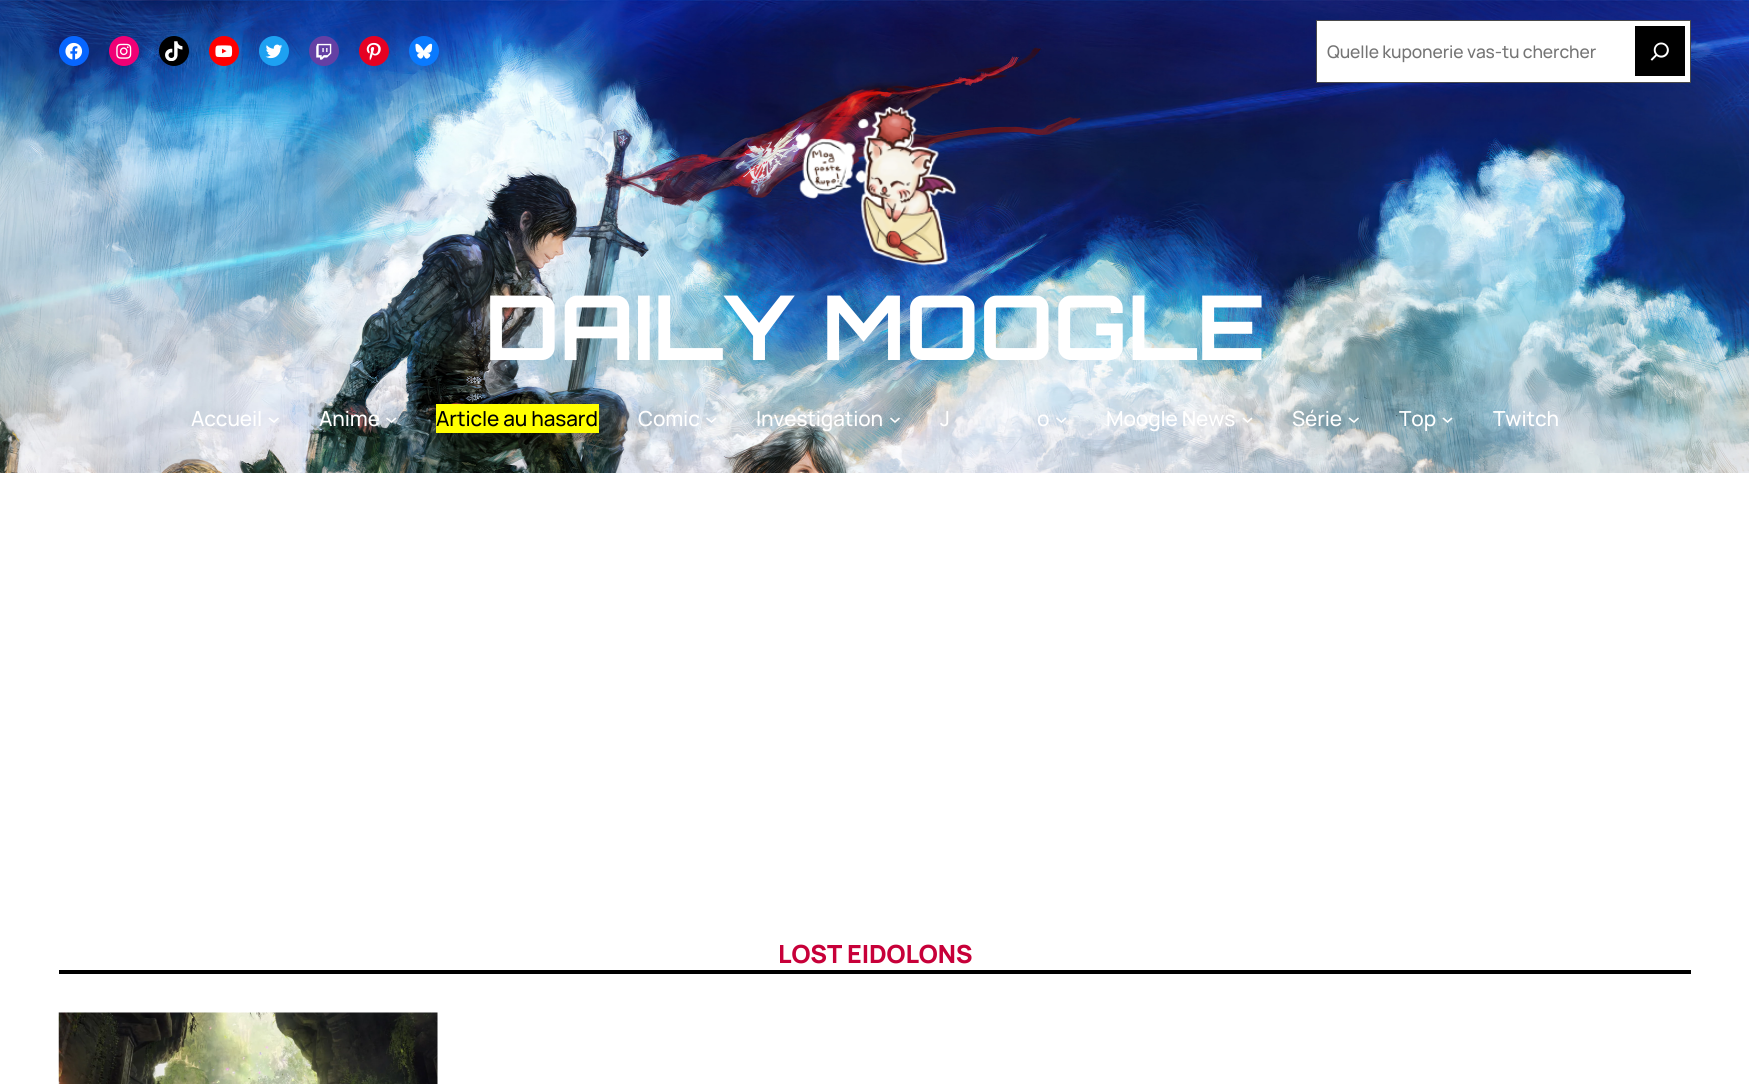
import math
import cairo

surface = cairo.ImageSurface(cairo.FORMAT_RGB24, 1749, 1084)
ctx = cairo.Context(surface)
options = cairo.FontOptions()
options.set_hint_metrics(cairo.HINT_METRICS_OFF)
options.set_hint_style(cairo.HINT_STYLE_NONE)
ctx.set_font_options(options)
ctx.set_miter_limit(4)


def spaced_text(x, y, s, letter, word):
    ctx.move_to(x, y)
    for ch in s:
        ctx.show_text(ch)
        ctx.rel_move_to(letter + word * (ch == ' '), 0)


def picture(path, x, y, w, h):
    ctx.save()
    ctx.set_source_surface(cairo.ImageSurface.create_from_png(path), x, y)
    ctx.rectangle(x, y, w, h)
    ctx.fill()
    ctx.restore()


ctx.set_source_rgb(1, 1, 1)
ctx.paint()
picture("img1.png", 0, 0, 1749, 473)
ctx.set_source_rgb(0.031, 0.4, 1)
ctx.arc(74, 51, 15, 0, 2 * math.pi)
ctx.fill()
picture("img2.png", 65, 42, 18, 18)
ctx.set_source_rgb(0.941, 0, 0.459)
ctx.arc(124, 51, 15, 0, 2 * math.pi)
ctx.fill()
picture("img3.png", 116, 43, 16, 16)
ctx.set_source_rgb(0, 0, 0)
ctx.arc(174, 51, 15, 0, 2 * math.pi)
ctx.fill()
picture("img4.png", 165, 41, 18, 20)
ctx.set_source_rgb(1, 0, 0)
ctx.arc(224, 51, 15, 0, 2 * math.pi)
ctx.fill()
picture("img5.png", 215, 45, 18, 13)
ctx.set_source_rgb(0.114, 0.631, 0.949)
ctx.arc(274, 51, 15, 0, 2 * math.pi)
ctx.fill()
picture("img6.png", 265, 44, 18, 15)
ctx.set_source_rgb(0.392, 0.251, 0.643)
ctx.arc(324, 51, 15, 0, 2 * math.pi)
ctx.fill()
picture("img7.png", 316, 43, 16, 17)
ctx.set_source_rgb(0.902, 0.004, 0.133)
ctx.arc(374, 51, 15, 0, 2 * math.pi)
ctx.fill()
picture("img8.png", 366, 42, 15, 19)
ctx.set_source_rgb(0.039, 0.478, 1)
ctx.arc(424, 51, 15, 0, 2 * math.pi)
ctx.fill()
picture("img9.png", 415, 43, 18, 16)
ctx.set_source_rgb(1, 1, 1)
ctx.rectangle(1316.5, 20.5, 374, 62)
ctx.fill_preserve()
ctx.set_source_rgb(0.29, 0.29, 0.29)
ctx.set_line_width(1)
ctx.stroke()
ctx.select_font_face("Manrope Medium")
ctx.set_font_size(17.4)
ctx.set_source_rgb(0.459, 0.459, 0.459)
spaced_text(1327, 58, "Quelle kuponerie vas-tu chercher", -0.1, 0)
ctx.set_source_rgb(0, 0, 0)
ctx.rectangle(1635, 26, 50, 50)
ctx.fill()
picture("img10.png", 1650, 42, 19, 19)
picture("img11.png", 794, 106, 163, 160)
ctx.select_font_face("Orbitron", cairo.FONT_SLANT_NORMAL, cairo.FONT_WEIGHT_BOLD)
ctx.set_font_size(89.5)
ctx.set_source_rgb(1, 1, 1)
spaced_text(485, 360, "DAILY MOOGLE", -0.1, 0)
ctx.select_font_face("Manrope Medium")
ctx.set_font_size(20.75)
spaced_text(191, 426, "Accueil", -0.1, 0)
ctx.new_path()
ctx.move_to(269, 418)
ctx.line_to(274, 422)
ctx.line_to(278.5, 418)
ctx.set_line_width(1.6)
ctx.stroke()
spaced_text(319, 426, "Anime", -0.1, 0)
ctx.new_path()
ctx.move_to(386.5, 418)
ctx.line_to(391.5, 422)
ctx.line_to(396, 418)
ctx.stroke()
ctx.set_source_rgb(1, 1, 0)
ctx.rectangle(436, 404, 163, 29)
ctx.fill()
ctx.set_source_rgb(0, 0, 0)
spaced_text(436, 426, "Article au hasard", -0.1, 0)
ctx.set_source_rgb(1, 1, 1)
spaced_text(638, 426, "Comic", -0.1, 0)
ctx.new_path()
ctx.move_to(706.5, 418)
ctx.line_to(711.5, 422)
ctx.line_to(716, 418)
ctx.stroke()
spaced_text(756, 426, "Investigation", -0.1, 0)
ctx.new_path()
ctx.move_to(890.5, 418)
ctx.line_to(895, 422)
ctx.line_to(899.5, 418)
ctx.stroke()
spaced_text(940, 426, "J", -0.1, 0)
spaced_text(1037, 426, "o", -0.1, 0)
ctx.new_path()
ctx.move_to(1056.5, 418)
ctx.line_to(1061.5, 422)
ctx.line_to(1066, 418)
ctx.stroke()
spaced_text(1106, 426, "Moogle News", -0.1, 0)
ctx.new_path()
ctx.move_to(1243, 418)
ctx.line_to(1247.5, 422)
ctx.line_to(1252, 418)
ctx.stroke()
spaced_text(1292, 426, "Série", -0.1, 0)
ctx.new_path()
ctx.move_to(1349, 418)
ctx.line_to(1354, 422)
ctx.line_to(1358.5, 418)
ctx.stroke()
spaced_text(1399, 426, "Top", -0.1, 0)
ctx.new_path()
ctx.move_to(1443, 418)
ctx.line_to(1447.5, 422)
ctx.line_to(1452, 418)
ctx.stroke()
spaced_text(1493, 426, "Twitch", -0.1, 0)
ctx.set_source_rgb(0, 0, 0)
ctx.rectangle(59, 970, 1632, 4)
ctx.fill()
ctx.select_font_face("Manrope ExtraBold")
ctx.set_font_size(25)
ctx.set_source_rgb(0.78, 0, 0.224)
spaced_text(778, 963, "LOST EIDOLONS", -0.1, 0)
picture("img12.png", 58, 1012, 380, 72)
surface.write_to_png("page.png")
